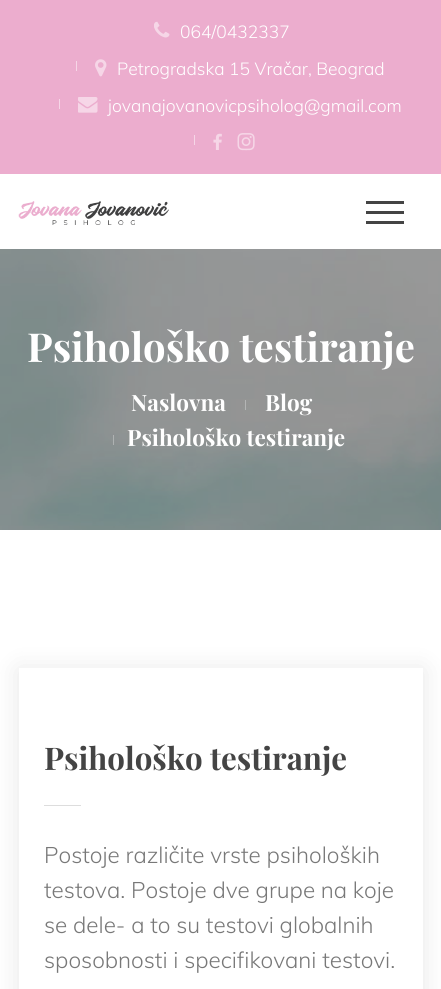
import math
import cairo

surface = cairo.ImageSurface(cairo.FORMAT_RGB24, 441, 989)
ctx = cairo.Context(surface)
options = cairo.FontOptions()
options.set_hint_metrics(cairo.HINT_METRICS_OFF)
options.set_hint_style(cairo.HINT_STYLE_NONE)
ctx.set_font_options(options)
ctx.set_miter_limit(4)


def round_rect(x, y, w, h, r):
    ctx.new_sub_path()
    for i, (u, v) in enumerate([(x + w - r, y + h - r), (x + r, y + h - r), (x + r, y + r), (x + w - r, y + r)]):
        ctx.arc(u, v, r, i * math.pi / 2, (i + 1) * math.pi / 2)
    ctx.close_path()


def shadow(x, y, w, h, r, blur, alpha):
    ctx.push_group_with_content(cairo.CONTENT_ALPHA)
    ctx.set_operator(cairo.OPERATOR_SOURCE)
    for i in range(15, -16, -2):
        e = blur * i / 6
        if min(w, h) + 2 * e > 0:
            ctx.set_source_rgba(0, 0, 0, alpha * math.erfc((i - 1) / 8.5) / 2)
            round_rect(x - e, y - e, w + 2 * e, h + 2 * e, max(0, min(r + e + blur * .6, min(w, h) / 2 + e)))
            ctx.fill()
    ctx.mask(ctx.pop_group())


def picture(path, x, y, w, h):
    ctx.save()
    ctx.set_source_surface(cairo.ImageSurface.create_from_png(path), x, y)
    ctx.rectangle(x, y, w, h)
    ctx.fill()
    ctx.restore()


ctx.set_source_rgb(1, 1, 1)
ctx.paint()
ctx.set_source_rgb(0.922, 0.678, 0.808)
ctx.rectangle(0, 0, 441, 174)
ctx.fill()
picture("img1.png", 154, 21, 16, 17)
ctx.select_font_face("Muli Light")
ctx.set_font_size(17.5)
ctx.set_source_rgb(1, 1, 1)
ctx.move_to(180, 38)
ctx.show_text("064/0432337")
ctx.set_source_rgb(0.961, 0.839, 0.906)
ctx.rectangle(76, 61, 1, 10)
ctx.fill()
picture("img2.png", 95, 59, 12, 18)
ctx.set_source_rgb(1, 1, 1)
ctx.move_to(117, 75)
ctx.show_text("Petrogradska 15 Vračar, Beograd")
ctx.set_source_rgb(0.961, 0.839, 0.906)
ctx.rectangle(59, 99, 1, 10)
ctx.fill()
picture("img3.png", 78, 97, 20, 16)
ctx.set_source_rgb(1, 1, 1)
ctx.move_to(108, 112)
ctx.show_text("jovanajovanovicpsiholog@gmail.com")
ctx.set_source_rgb(0.961, 0.839, 0.906)
ctx.rectangle(194, 135, 1, 10)
ctx.fill()
picture("img4.png", 213, 133, 9, 17)
picture("img5.png", 237, 133, 18, 18)
picture("img6.png", 18, 201, 151, 24)
ctx.set_source_rgb(0.267, 0.267, 0.267)
ctx.rectangle(366, 211, 38, 3)
ctx.fill()
ctx.rectangle(366, 201, 38, 3)
ctx.fill()
ctx.rectangle(366, 221, 38, 3)
ctx.fill()
picture("img7.png", 0, 249, 441, 281)
ctx.select_font_face("Playfair Display", cairo.FONT_SLANT_NORMAL, cairo.FONT_WEIGHT_BOLD)
ctx.set_font_size(40)
ctx.set_source_rgb(1, 1, 1)
ctx.move_to(27, 362)
ctx.show_text("Psihološko testiranje")
ctx.set_font_size(22.5)
ctx.move_to(131, 411)
ctx.show_text("Naslovna")
ctx.set_source_rgb(0.706, 0.71, 0.71)
ctx.rectangle(245, 400, 1, 10)
ctx.fill()
ctx.set_source_rgb(1, 1, 1)
ctx.move_to(265, 411)
ctx.show_text("Blog")
ctx.set_source_rgba(1, 1, 1, 0.3)
ctx.rectangle(113, 435, 1, 10)
ctx.fill()
ctx.set_source_rgb(1, 1, 1)
ctx.move_to(127, 446)
ctx.show_text("Psihološko testiranje")
ctx.save()
ctx.set_fill_rule(cairo.FILL_RULE_EVEN_ODD)
ctx.new_path()
ctx.move_to(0, 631)
ctx.line_to(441, 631)
ctx.line_to(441, 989)
ctx.line_to(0, 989)
ctx.close_path()
ctx.move_to(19, 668)
ctx.line_to(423, 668)
ctx.line_to(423, 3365)
ctx.line_to(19, 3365)
ctx.close_path()
ctx.clip()
ctx.set_source_rgb(0, 0, 0)
shadow(19, 670, 404, 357, 0, 12.5, 0.1)
ctx.restore()
ctx.set_font_size(31.25)
ctx.set_source_rgb(0.267, 0.267, 0.267)
ctx.move_to(44, 770)
ctx.show_text("Psihološko testiranje")
ctx.set_source_rgb(0.867, 0.867, 0.867)
ctx.rectangle(44, 805, 37, 1)
ctx.fill()
ctx.select_font_face("Muli Light")
ctx.set_font_size(22.5)
ctx.set_source_rgb(0.471, 0.471, 0.471)
ctx.move_to(44, 863)
ctx.show_text("Postoje različite vrste psiholoških")
ctx.move_to(44, 898)
ctx.show_text("testova. Postoje dve grupe na koje")
ctx.move_to(44, 933)
ctx.show_text("se dele- a to su testovi globalnih")
ctx.move_to(44, 968)
ctx.show_text("sposobnosti i specifikovani testovi.")
surface.write_to_png("page.png")
